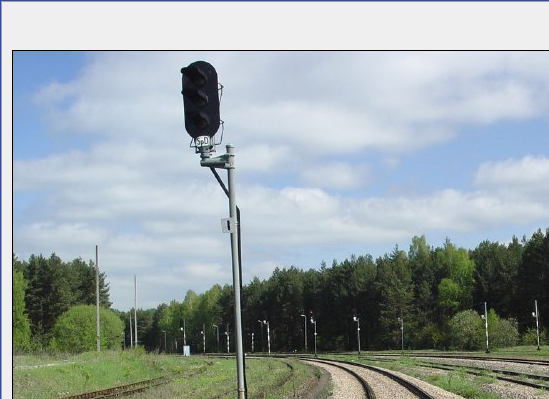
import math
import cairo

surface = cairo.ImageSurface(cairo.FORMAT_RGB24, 549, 399)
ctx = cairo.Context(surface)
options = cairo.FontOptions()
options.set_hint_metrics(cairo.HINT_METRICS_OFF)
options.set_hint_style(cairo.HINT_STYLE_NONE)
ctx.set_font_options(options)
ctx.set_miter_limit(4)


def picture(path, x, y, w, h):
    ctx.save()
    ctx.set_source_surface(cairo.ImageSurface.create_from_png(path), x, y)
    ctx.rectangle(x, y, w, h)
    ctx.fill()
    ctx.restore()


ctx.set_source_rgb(0.204, 0.314, 0.549)
ctx.paint()
ctx.set_source_rgb(0.627, 0.627, 0.627)
ctx.rectangle(1, 1, 548, 398)
ctx.fill()
ctx.set_source_rgb(0.937, 0.937, 0.937)
ctx.rectangle(2, 2, 547, 397)
ctx.fill()
ctx.rectangle(12.5, 50.5, 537, 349)
ctx.set_source_rgb(0, 0, 0)
ctx.set_line_width(1)
ctx.stroke()
picture("img1.png", 13, 51, 536, 348)
surface.write_to_png("page.png")
